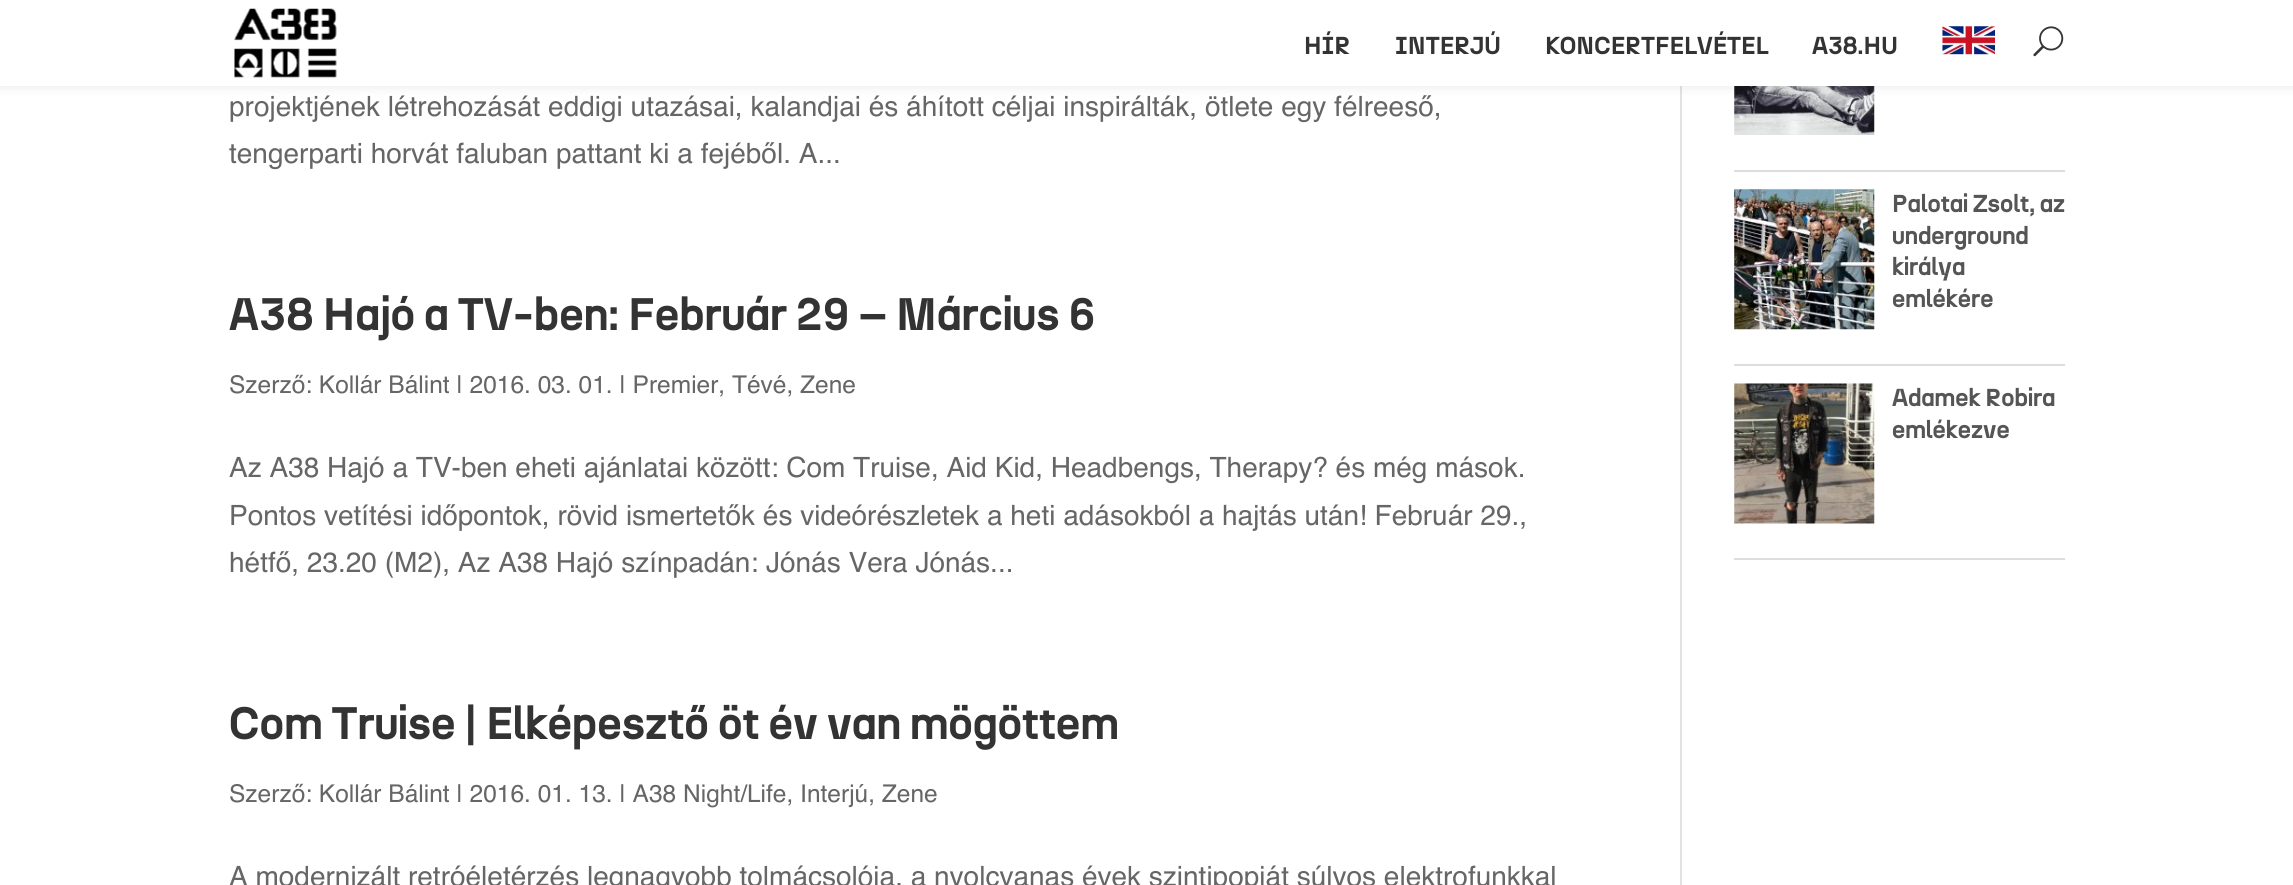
import math
import cairo

surface = cairo.ImageSurface(cairo.FORMAT_RGB24, 2293, 885)
ctx = cairo.Context(surface)
options = cairo.FontOptions()
options.set_hint_metrics(cairo.HINT_METRICS_OFF)
options.set_hint_style(cairo.HINT_STYLE_NONE)
ctx.set_font_options(options)
ctx.set_miter_limit(4)


def round_rect(x, y, w, h, r):
    ctx.new_sub_path()
    for i, (u, v) in enumerate([(x + w - r, y + h - r), (x + r, y + h - r), (x + r, y + r), (x + w - r, y + r)]):
        ctx.arc(u, v, r, i * math.pi / 2, (i + 1) * math.pi / 2)
    ctx.close_path()


def shadow(x, y, w, h, r, blur, alpha):
    ctx.push_group_with_content(cairo.CONTENT_ALPHA)
    ctx.set_operator(cairo.OPERATOR_SOURCE)
    for i in range(15, -16, -2):
        e = blur * i / 6
        if min(w, h) + 2 * e > 0:
            ctx.set_source_rgba(0, 0, 0, alpha * math.erfc((i - 1) / 8.5) / 2)
            round_rect(x - e, y - e, w + 2 * e, h + 2 * e, max(0, min(r + e + blur * .6, min(w, h) / 2 + e)))
            ctx.fill()
    ctx.mask(ctx.pop_group())


def picture(path, x, y, w, h):
    ctx.save()
    ctx.set_source_surface(cairo.ImageSurface.create_from_png(path), x, y)
    ctx.rectangle(x, y, w, h)
    ctx.fill()
    ctx.restore()


ctx.set_source_rgb(1, 1, 1)
ctx.paint()
ctx.set_source_rgb(0.886, 0.886, 0.886)
ctx.rectangle(1680, 86, 2, 799)
ctx.fill()
picture("img4.png", 1734, 86, 141, 49)
ctx.set_source_rgb(0, 0, 0)
shadow(0, 0, 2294, 86, 0, 6, 0.1)
ctx.set_source_rgb(1, 1, 1)
ctx.rectangle(0, 0, 2293, 86)
ctx.fill()
picture("img1.png", 234, 8, 103, 70)
ctx.select_font_face("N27", cairo.FONT_SLANT_NORMAL, cairo.FONT_WEIGHT_BOLD)
ctx.set_font_size(24.5)
ctx.set_source_rgb(0.2, 0.2, 0.2)
ctx.move_to(1304, 54)
ctx.show_text("HÍR")
ctx.move_to(1395, 54)
ctx.show_text("INTERJÚ")
ctx.move_to(1545, 54)
ctx.show_text("KONCERTFELVÉTEL")
ctx.move_to(1812, 54)
ctx.show_text("A38.HU")
picture("img2.png", 1942, 26, 53, 29)
picture("img3.png", 2033, 26, 31, 31)
ctx.select_font_face("Helvetica")
ctx.set_font_size(28)
ctx.set_source_rgb(0.4, 0.4, 0.4)
ctx.move_to(229, 116)
ctx.show_text("projektjének létrehozását eddigi utazásai, kalandjai és áhított céljai inspirálták, ötlete egy félreeső,")
ctx.move_to(229, 163)
ctx.show_text("tengerparti horvát faluban pattant ki a fejéből. A...")
ctx.select_font_face("N27", cairo.FONT_SLANT_NORMAL, cairo.FONT_WEIGHT_BOLD)
ctx.set_font_size(45.5)
ctx.set_source_rgb(0.2, 0.2, 0.2)
ctx.move_to(229, 330)
ctx.show_text("A38 Hajó a TV-ben: Február 29 – Március 6")
ctx.select_font_face("Helvetica")
ctx.set_font_size(24.5)
ctx.set_source_rgb(0.4, 0.4, 0.4)
ctx.move_to(229, 393)
ctx.show_text("Szerző: Kollár Bálint | 2016. 03. 01. | Premier, Tévé, Zene")
ctx.set_font_size(28)
ctx.move_to(229, 477)
ctx.show_text("Az A38 Hajó a TV-ben eheti ajánlatai között: Com Truise, Aid Kid, Headbengs, Therapy? és még mások.")
ctx.move_to(229, 525)
ctx.show_text("Pontos vetítési időpontok, rövid ismertetők és videórészletek a heti adásokból a hajtás után! Február 29.,")
ctx.move_to(229, 572)
ctx.show_text("hétfő, 23.20 (M2), Az A38 Hajó színpadán: Jónás Vera Jónás...")
ctx.select_font_face("N27", cairo.FONT_SLANT_NORMAL, cairo.FONT_WEIGHT_BOLD)
ctx.set_font_size(45.5)
ctx.set_source_rgb(0.2, 0.2, 0.2)
ctx.move_to(229, 739)
ctx.show_text("Com Truise | Elképesztő öt év van mögöttem")
ctx.select_font_face("Helvetica")
ctx.set_font_size(24.5)
ctx.set_source_rgb(0.4, 0.4, 0.4)
ctx.move_to(229, 802)
ctx.show_text("Szerző: Kollár Bálint | 2016. 01. 13. | A38 Night/Life, Interjú, Zene")
ctx.set_font_size(28)
ctx.move_to(229, 886)
ctx.show_text("A modernizált retróéletérzés legnagyobb tolmácsolója, a nyolcvanas évek szintipopját súlyos elektrofunkkal")
ctx.set_source_rgb(0.867, 0.867, 0.867)
ctx.rectangle(1734, 170, 331, 2)
ctx.fill()
ctx.rectangle(1734, 364, 331, 2)
ctx.fill()
picture("img5.png", 1734, 189, 141, 141)
ctx.select_font_face("N27", cairo.FONT_SLANT_NORMAL, cairo.FONT_WEIGHT_BOLD)
ctx.set_font_size(24.5)
ctx.set_source_rgb(0.333, 0.333, 0.333)
ctx.move_to(1892, 212)
ctx.show_text("Palotai Zsolt, az")
ctx.move_to(1892, 244)
ctx.show_text("underground")
ctx.move_to(1892, 275)
ctx.show_text("királya")
ctx.move_to(1892, 307)
ctx.show_text("emlékére")
ctx.set_source_rgb(0.867, 0.867, 0.867)
ctx.rectangle(1734, 558, 331, 2)
ctx.fill()
picture("img6.png", 1734, 383, 141, 141)
ctx.set_source_rgb(0.333, 0.333, 0.333)
ctx.move_to(1892, 406)
ctx.show_text("Adamek Robira")
ctx.move_to(1892, 438)
ctx.show_text("emlékezve")
surface.write_to_png("page.png")
